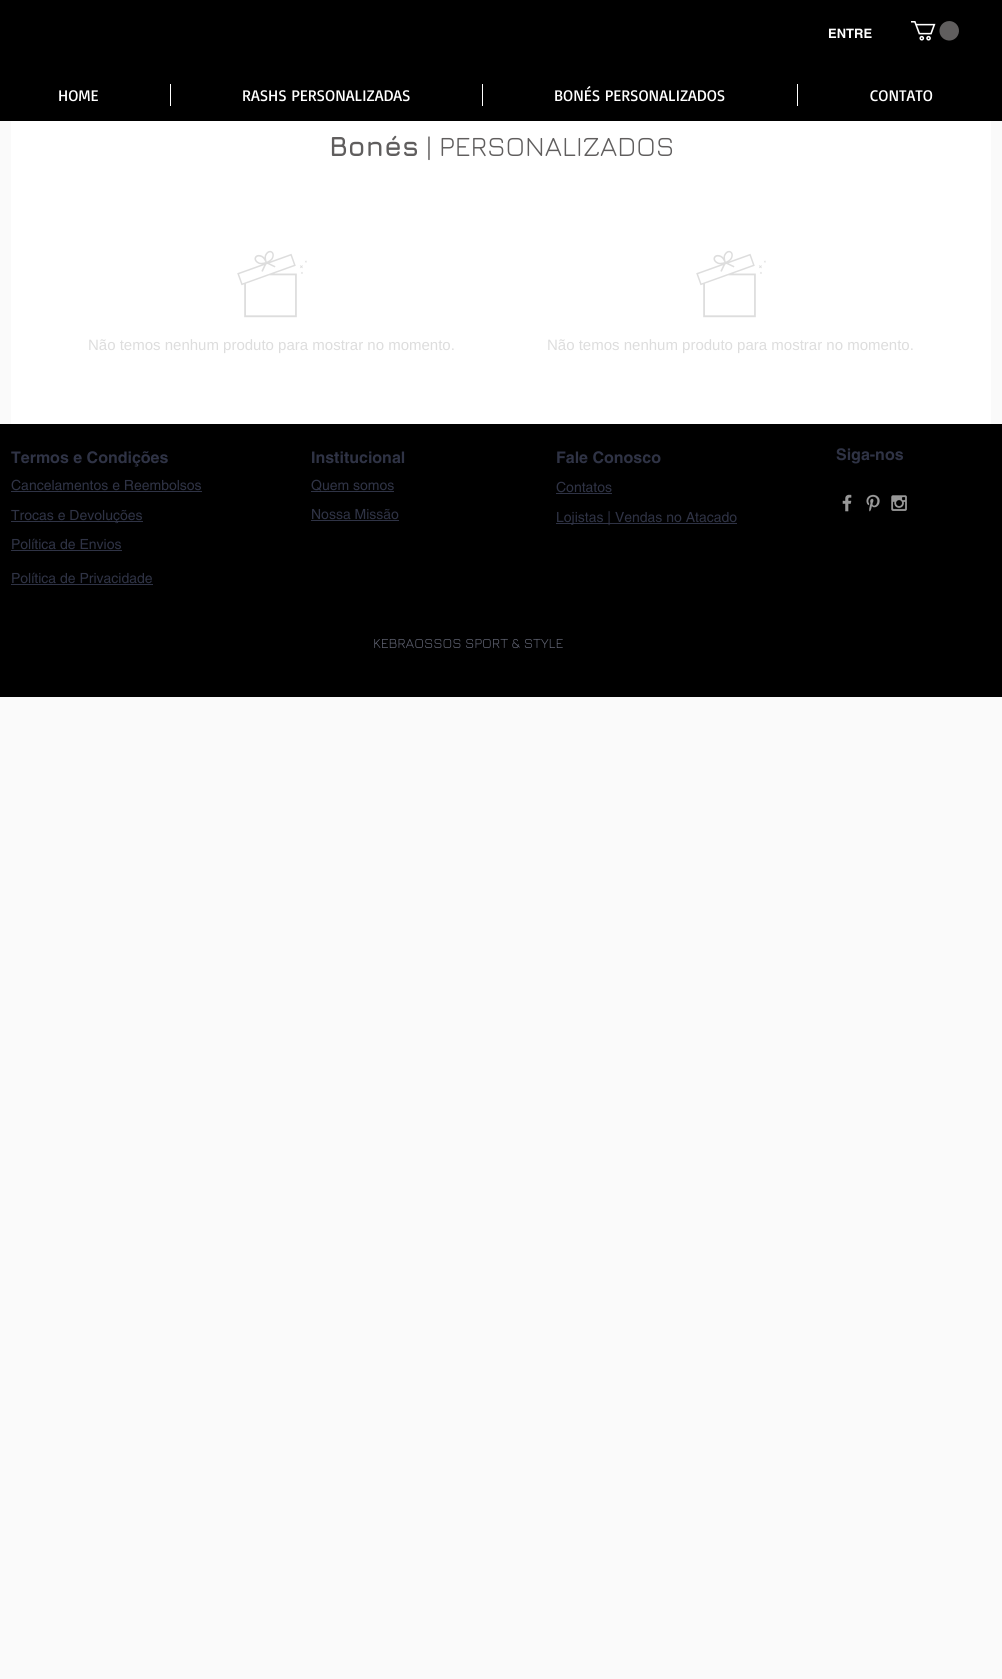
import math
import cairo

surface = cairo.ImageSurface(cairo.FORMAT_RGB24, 1002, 1679)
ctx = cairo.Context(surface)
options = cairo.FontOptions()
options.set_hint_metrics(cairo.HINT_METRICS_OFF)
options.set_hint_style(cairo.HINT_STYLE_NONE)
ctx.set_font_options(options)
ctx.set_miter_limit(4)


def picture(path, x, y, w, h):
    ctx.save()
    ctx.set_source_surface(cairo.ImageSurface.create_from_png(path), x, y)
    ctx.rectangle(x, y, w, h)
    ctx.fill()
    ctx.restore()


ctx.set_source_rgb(0.98, 0.98, 0.98)
ctx.paint()
ctx.set_source_rgb(0, 0, 0)
ctx.rectangle(0, 0, 1002, 121)
ctx.fill()
ctx.select_font_face("helvetica", cairo.FONT_SLANT_NORMAL, cairo.FONT_WEIGHT_BOLD)
ctx.set_font_size(13)
ctx.set_source_rgb(1, 1, 1)
ctx.move_to(828, 38)
ctx.show_text("ENTRE")
picture("img1.png", 911, 21, 48, 20)
ctx.select_font_face("Basic")
ctx.set_font_size(16)
ctx.move_to(58, 101)
ctx.show_text("HOME")
ctx.rectangle(170, 84, 1, 22)
ctx.fill()
ctx.move_to(242, 101)
ctx.show_text("RASHS PERSONALIZADAS")
ctx.rectangle(482, 84, 1, 22)
ctx.fill()
ctx.move_to(554, 101)
ctx.show_text("BONÉS PERSONALIZADOS")
ctx.rectangle(797, 84, 1, 22)
ctx.fill()
ctx.move_to(870, 101)
ctx.show_text("CONTATO")
ctx.rectangle(11, 121, 980, 303)
ctx.fill()
ctx.select_font_face("Jura", cairo.FONT_SLANT_NORMAL, cairo.FONT_WEIGHT_BOLD)
ctx.set_font_size(28)
ctx.set_source_rgb(0.376, 0.369, 0.369)
ctx.move_to(329, 156)
ctx.show_text("Bonés")
ctx.select_font_face("Jura")
ctx.move_to(426, 156)
ctx.show_text("| PERSONALIZADOS")
picture("img2.png", 237, 250, 70, 68)
ctx.select_font_face("Liberation Sans")
ctx.set_font_size(15)
ctx.set_source_rgb(0.867, 0.867, 0.867)
ctx.move_to(88, 350)
ctx.show_text("Não temos nenhum produto para mostrar no momento.")
picture("img2.png", 696, 250, 70, 68)
ctx.move_to(547, 350)
ctx.show_text("Não temos nenhum produto para mostrar no momento.")
ctx.set_source_rgb(0, 0, 0)
ctx.rectangle(0, 424, 1002, 273)
ctx.fill()
ctx.select_font_face("helvetica", cairo.FONT_SLANT_NORMAL, cairo.FONT_WEIGHT_BOLD)
ctx.set_font_size(16)
ctx.set_source_rgb(0.184, 0.2, 0.271)
ctx.move_to(11, 463)
ctx.show_text("Termos e Condições")
ctx.move_to(311, 463)
ctx.show_text("Institucional")
ctx.move_to(556, 463)
ctx.show_text("Fale Conosco")
ctx.move_to(836, 460)
ctx.show_text("Siga-nos")
ctx.select_font_face("helvetica")
ctx.set_font_size(14)
ctx.move_to(11, 490)
ctx.show_text("Cancelamentos e Reembolsos")
ctx.rectangle(11, 491, 191, 1)
ctx.fill()
ctx.move_to(311, 490)
ctx.show_text("Quem somos")
ctx.rectangle(311, 491, 83, 1)
ctx.fill()
ctx.move_to(556, 492)
ctx.show_text("Contatos")
ctx.rectangle(556, 493, 56, 1)
ctx.fill()
picture("img3.png", 842, 494, 10, 18)
picture("img4.png", 866, 494, 14, 18)
picture("img5.png", 891, 495, 16, 16)
ctx.rectangle(11, 521, 132, 1)
ctx.fill()
ctx.move_to(11, 520)
ctx.show_text("Trocas e Devoluções")
ctx.move_to(311, 519)
ctx.show_text("Nossa Missão")
ctx.rectangle(311, 520, 88, 1)
ctx.fill()
ctx.rectangle(556, 523, 181, 1)
ctx.fill()
ctx.move_to(556, 522)
ctx.show_text("Lojistas | Vendas no Atacado")
ctx.move_to(11, 549)
ctx.show_text("Política de Envios")
ctx.rectangle(11, 550, 111, 1)
ctx.fill()
ctx.move_to(11, 583)
ctx.show_text("Política de Privacidade")
ctx.rectangle(11, 584, 142, 1)
ctx.fill()
ctx.select_font_face("Jura")
ctx.set_source_rgb(0.38, 0.392, 0.451)
ctx.move_to(373, 648)
ctx.show_text("KEBRAOSSOS SPORT & STYLE")
surface.write_to_png("page.png")
